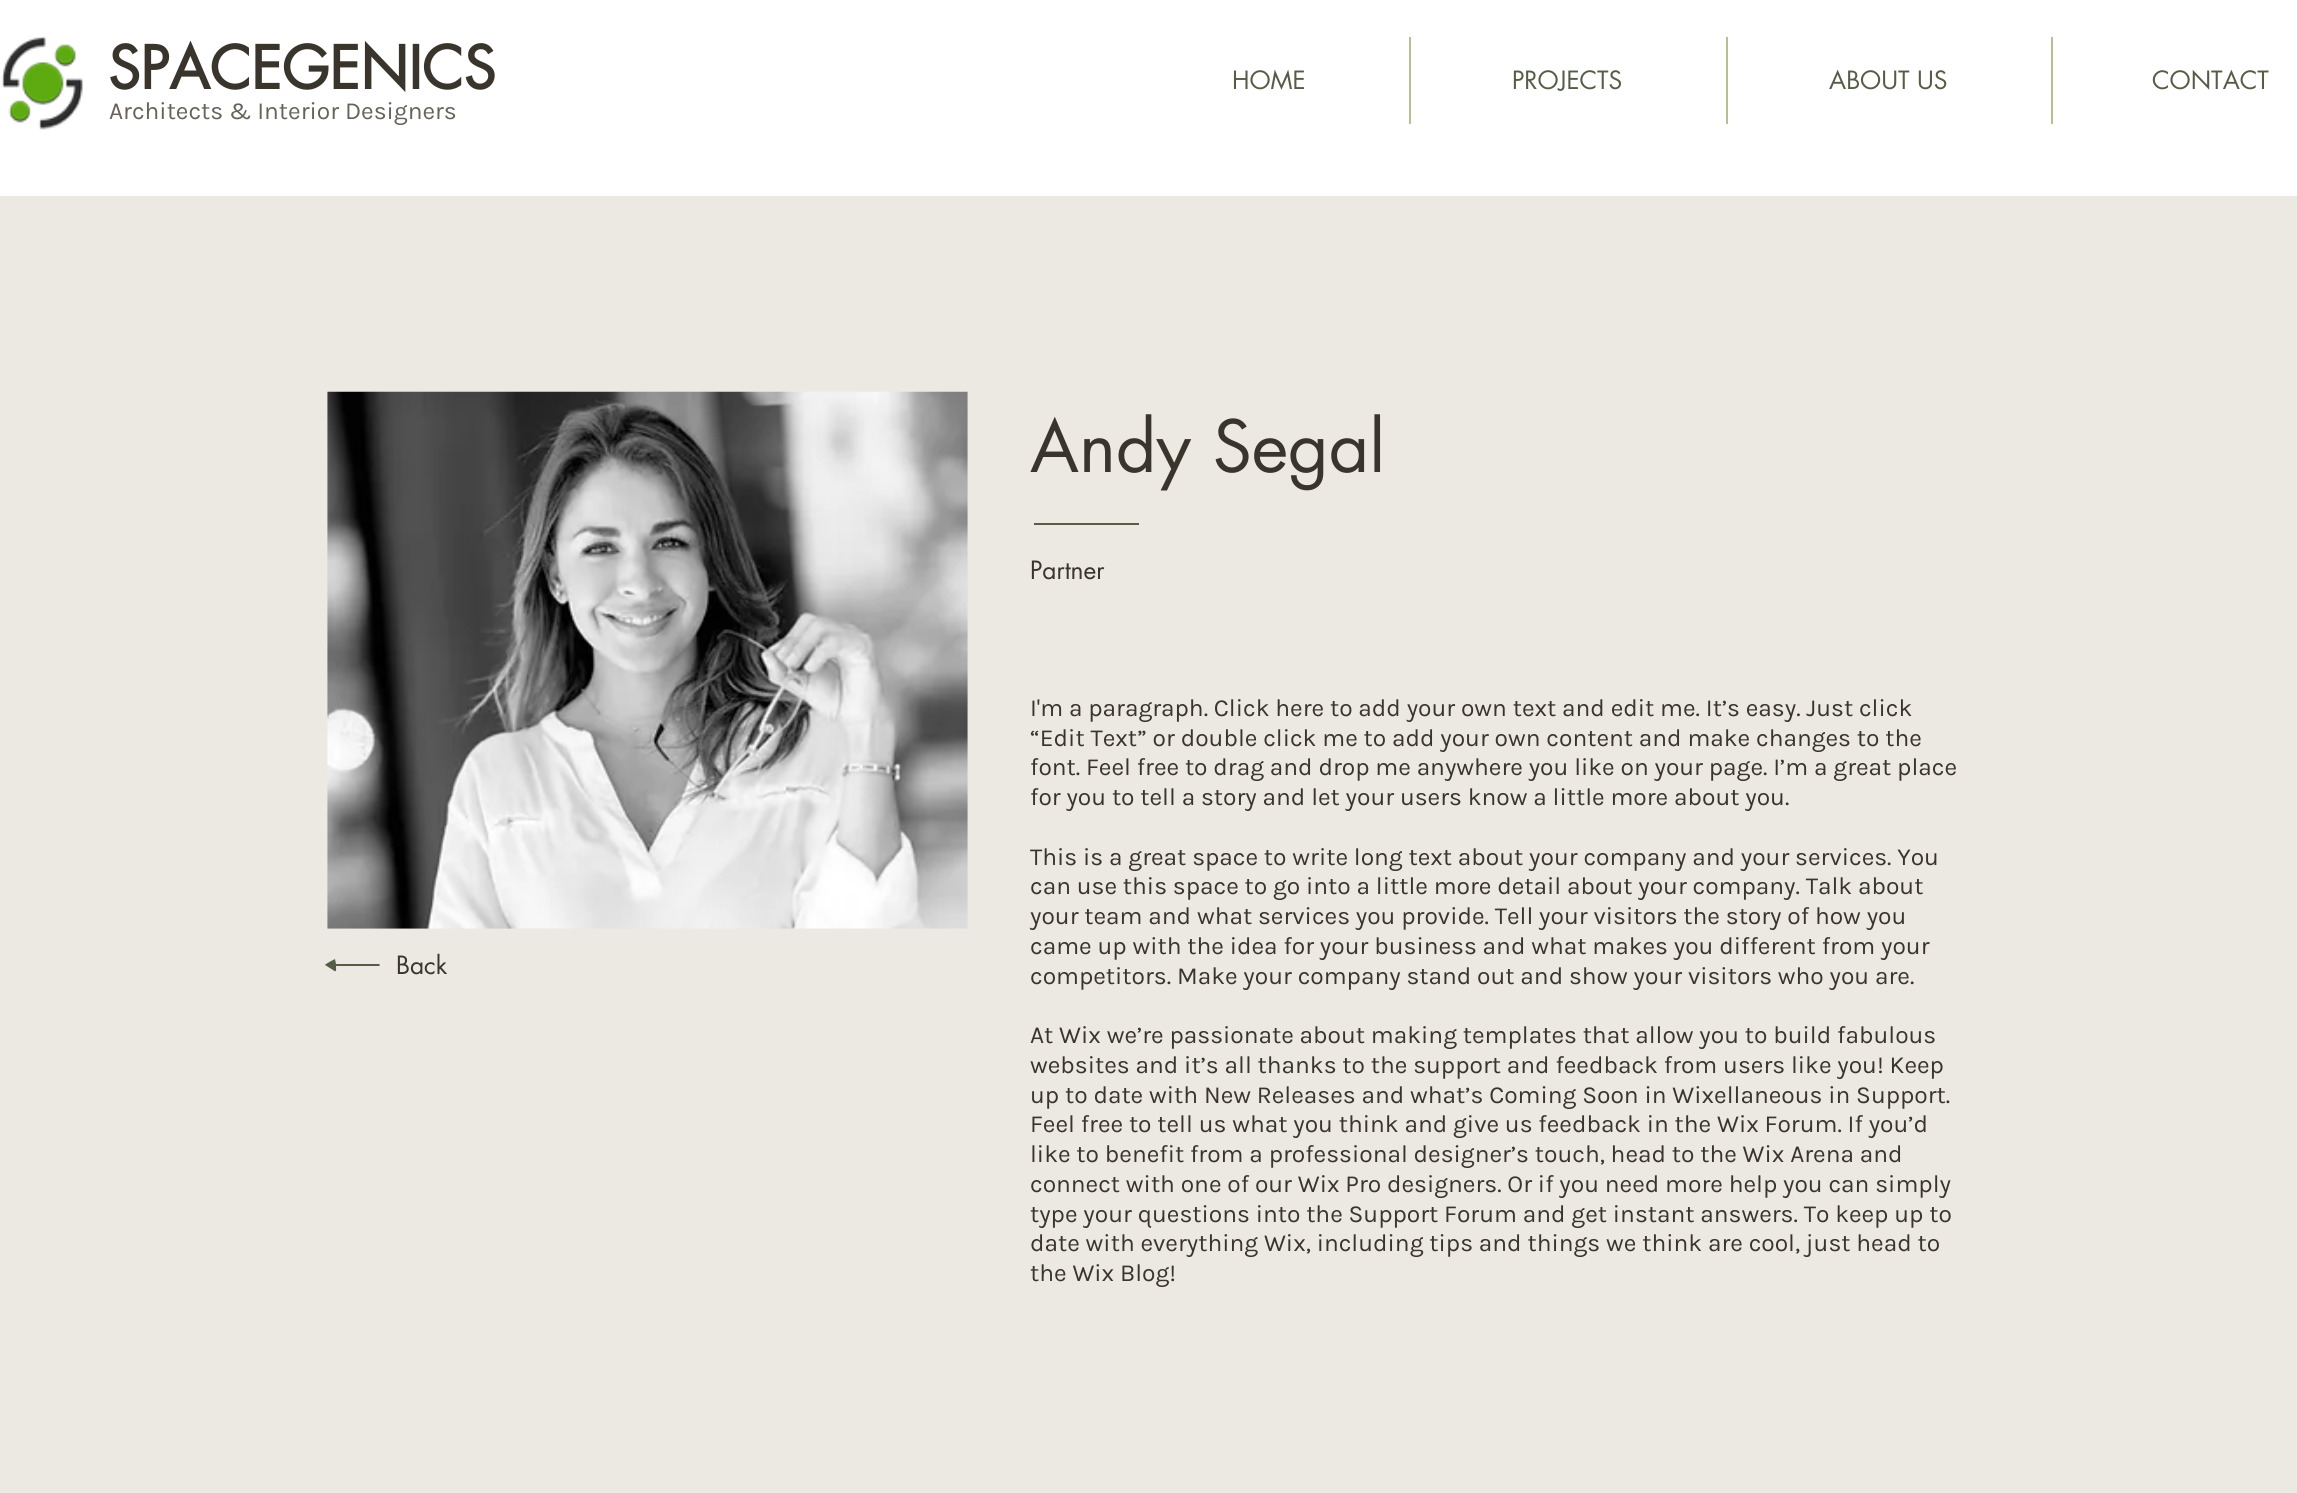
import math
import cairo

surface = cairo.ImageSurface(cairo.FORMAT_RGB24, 2297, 1493)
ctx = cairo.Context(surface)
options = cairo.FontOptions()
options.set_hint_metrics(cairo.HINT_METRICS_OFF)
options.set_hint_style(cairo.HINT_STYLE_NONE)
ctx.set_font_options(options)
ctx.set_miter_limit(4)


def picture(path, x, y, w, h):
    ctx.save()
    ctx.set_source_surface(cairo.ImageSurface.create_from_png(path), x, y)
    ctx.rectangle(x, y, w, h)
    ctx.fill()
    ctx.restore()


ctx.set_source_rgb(0.925, 0.914, 0.89)
ctx.paint()
ctx.set_source_rgb(1, 1, 1)
ctx.rectangle(0, 0, 2297, 196)
ctx.fill()
picture("img1.png", 1, 36, 82, 94)
ctx.select_font_face("futura", cairo.FONT_SLANT_NORMAL, cairo.FONT_WEIGHT_BOLD)
ctx.set_font_size(57.75)
ctx.set_source_rgb(0.227, 0.208, 0.173)
ctx.move_to(108, 89)
ctx.show_text("SPACEGENICS")
ctx.select_font_face("Karla")
ctx.set_font_size(24.5)
ctx.set_source_rgb(0.404, 0.384, 0.353)
ctx.move_to(109, 119)
ctx.show_text("Architects & Interior Designers")
ctx.select_font_face("futura")
ctx.set_source_rgb(0.333, 0.365, 0.278)
ctx.move_to(1232, 89)
ctx.show_text("HOME")
ctx.set_source_rgb(0.725, 0.749, 0.573)
ctx.rectangle(1409, 37, 2, 87)
ctx.fill()
ctx.set_source_rgb(0.333, 0.365, 0.278)
ctx.move_to(1512, 89)
ctx.show_text("PROJECTS")
ctx.set_source_rgb(0.725, 0.749, 0.573)
ctx.rectangle(1726, 37, 2, 87)
ctx.fill()
ctx.set_source_rgb(0.333, 0.365, 0.278)
ctx.move_to(1829, 89)
ctx.show_text("ABOUT US")
ctx.set_source_rgb(0.725, 0.749, 0.573)
ctx.rectangle(2051, 37, 2, 87)
ctx.fill()
ctx.set_source_rgb(0.333, 0.365, 0.278)
ctx.move_to(2152, 89)
ctx.show_text("CONTACT")
ctx.new_path()
ctx.move_to(379, 964)
ctx.line_to(336, 964)
ctx.line_to(335, 959)
ctx.curve_to(335, 959, 325, 964, 325, 965)
ctx.line_to(333, 970)
ctx.curve_to(337, 973, 336, 970, 336, 966)
ctx.line_to(379, 966)
ctx.curve_to(380, 966, 380, 964, 379, 964)
ctx.close_path()
ctx.fill()
picture("img2.png", 327, 391, 641, 538)
ctx.set_font_size(70)
ctx.set_source_rgb(0.227, 0.208, 0.173)
ctx.move_to(1030, 472)
ctx.show_text("Andy Segal")
ctx.set_source_rgb(0.333, 0.365, 0.278)
ctx.rectangle(1034, 523, 105, 2)
ctx.fill()
ctx.set_font_size(24.5)
ctx.set_source_rgb(0.227, 0.208, 0.173)
ctx.move_to(1030, 579)
ctx.show_text("Partner")
ctx.move_to(396, 974)
ctx.show_text("Back")
ctx.select_font_face("Karla")
ctx.move_to(1030, 716)
ctx.show_text("I'm a paragraph. Click here to add your own text and edit me. It’s easy. Just click")
ctx.move_to(1030, 746)
ctx.show_text("“Edit Text” or double click me to add your own content and make changes to the")
ctx.move_to(1030, 775)
ctx.show_text("font. Feel free to drag and drop me anywhere you like on your page. I’m a great place")
ctx.move_to(1030, 805)
ctx.show_text("for you to tell a story and let your users know a little more about you.")
ctx.move_to(1030, 865)
ctx.show_text("This is a great space to write long text about your company and your services. You")
ctx.move_to(1030, 894)
ctx.show_text("can use this space to go into a little more detail about your company. Talk about")
ctx.move_to(1030, 924)
ctx.show_text("your team and what services you provide. Tell your visitors the story of how you")
ctx.move_to(1030, 954)
ctx.show_text("came up with the idea for your business and what makes you different from your")
ctx.move_to(1030, 984)
ctx.show_text("competitors. Make your company stand out and show your visitors who you are.")
ctx.move_to(1030, 1043)
ctx.show_text("At Wix we’re passionate about making templates that allow you to build fabulous")
ctx.move_to(1030, 1073)
ctx.show_text("websites and it’s all thanks to the support and feedback from users like you! Keep")
ctx.move_to(1030, 1103)
ctx.show_text("up to date with New Releases and what’s Coming Soon in Wixellaneous in Support.")
ctx.move_to(1030, 1132)
ctx.show_text("Feel free to tell us what you think and give us feedback in the Wix Forum. If you’d")
ctx.move_to(1030, 1162)
ctx.show_text("like to benefit from a professional designer’s touch, head to the Wix Arena and")
ctx.move_to(1030, 1192)
ctx.show_text("connect with one of our Wix Pro designers. Or if you need more help you can simply")
ctx.move_to(1030, 1222)
ctx.show_text("type your questions into the Support Forum and get instant answers. To keep up to")
ctx.move_to(1030, 1251)
ctx.show_text("date with everything Wix, including tips and things we think are cool, just head to")
ctx.move_to(1030, 1281)
ctx.show_text("the Wix Blog!")
surface.write_to_png("page.png")
